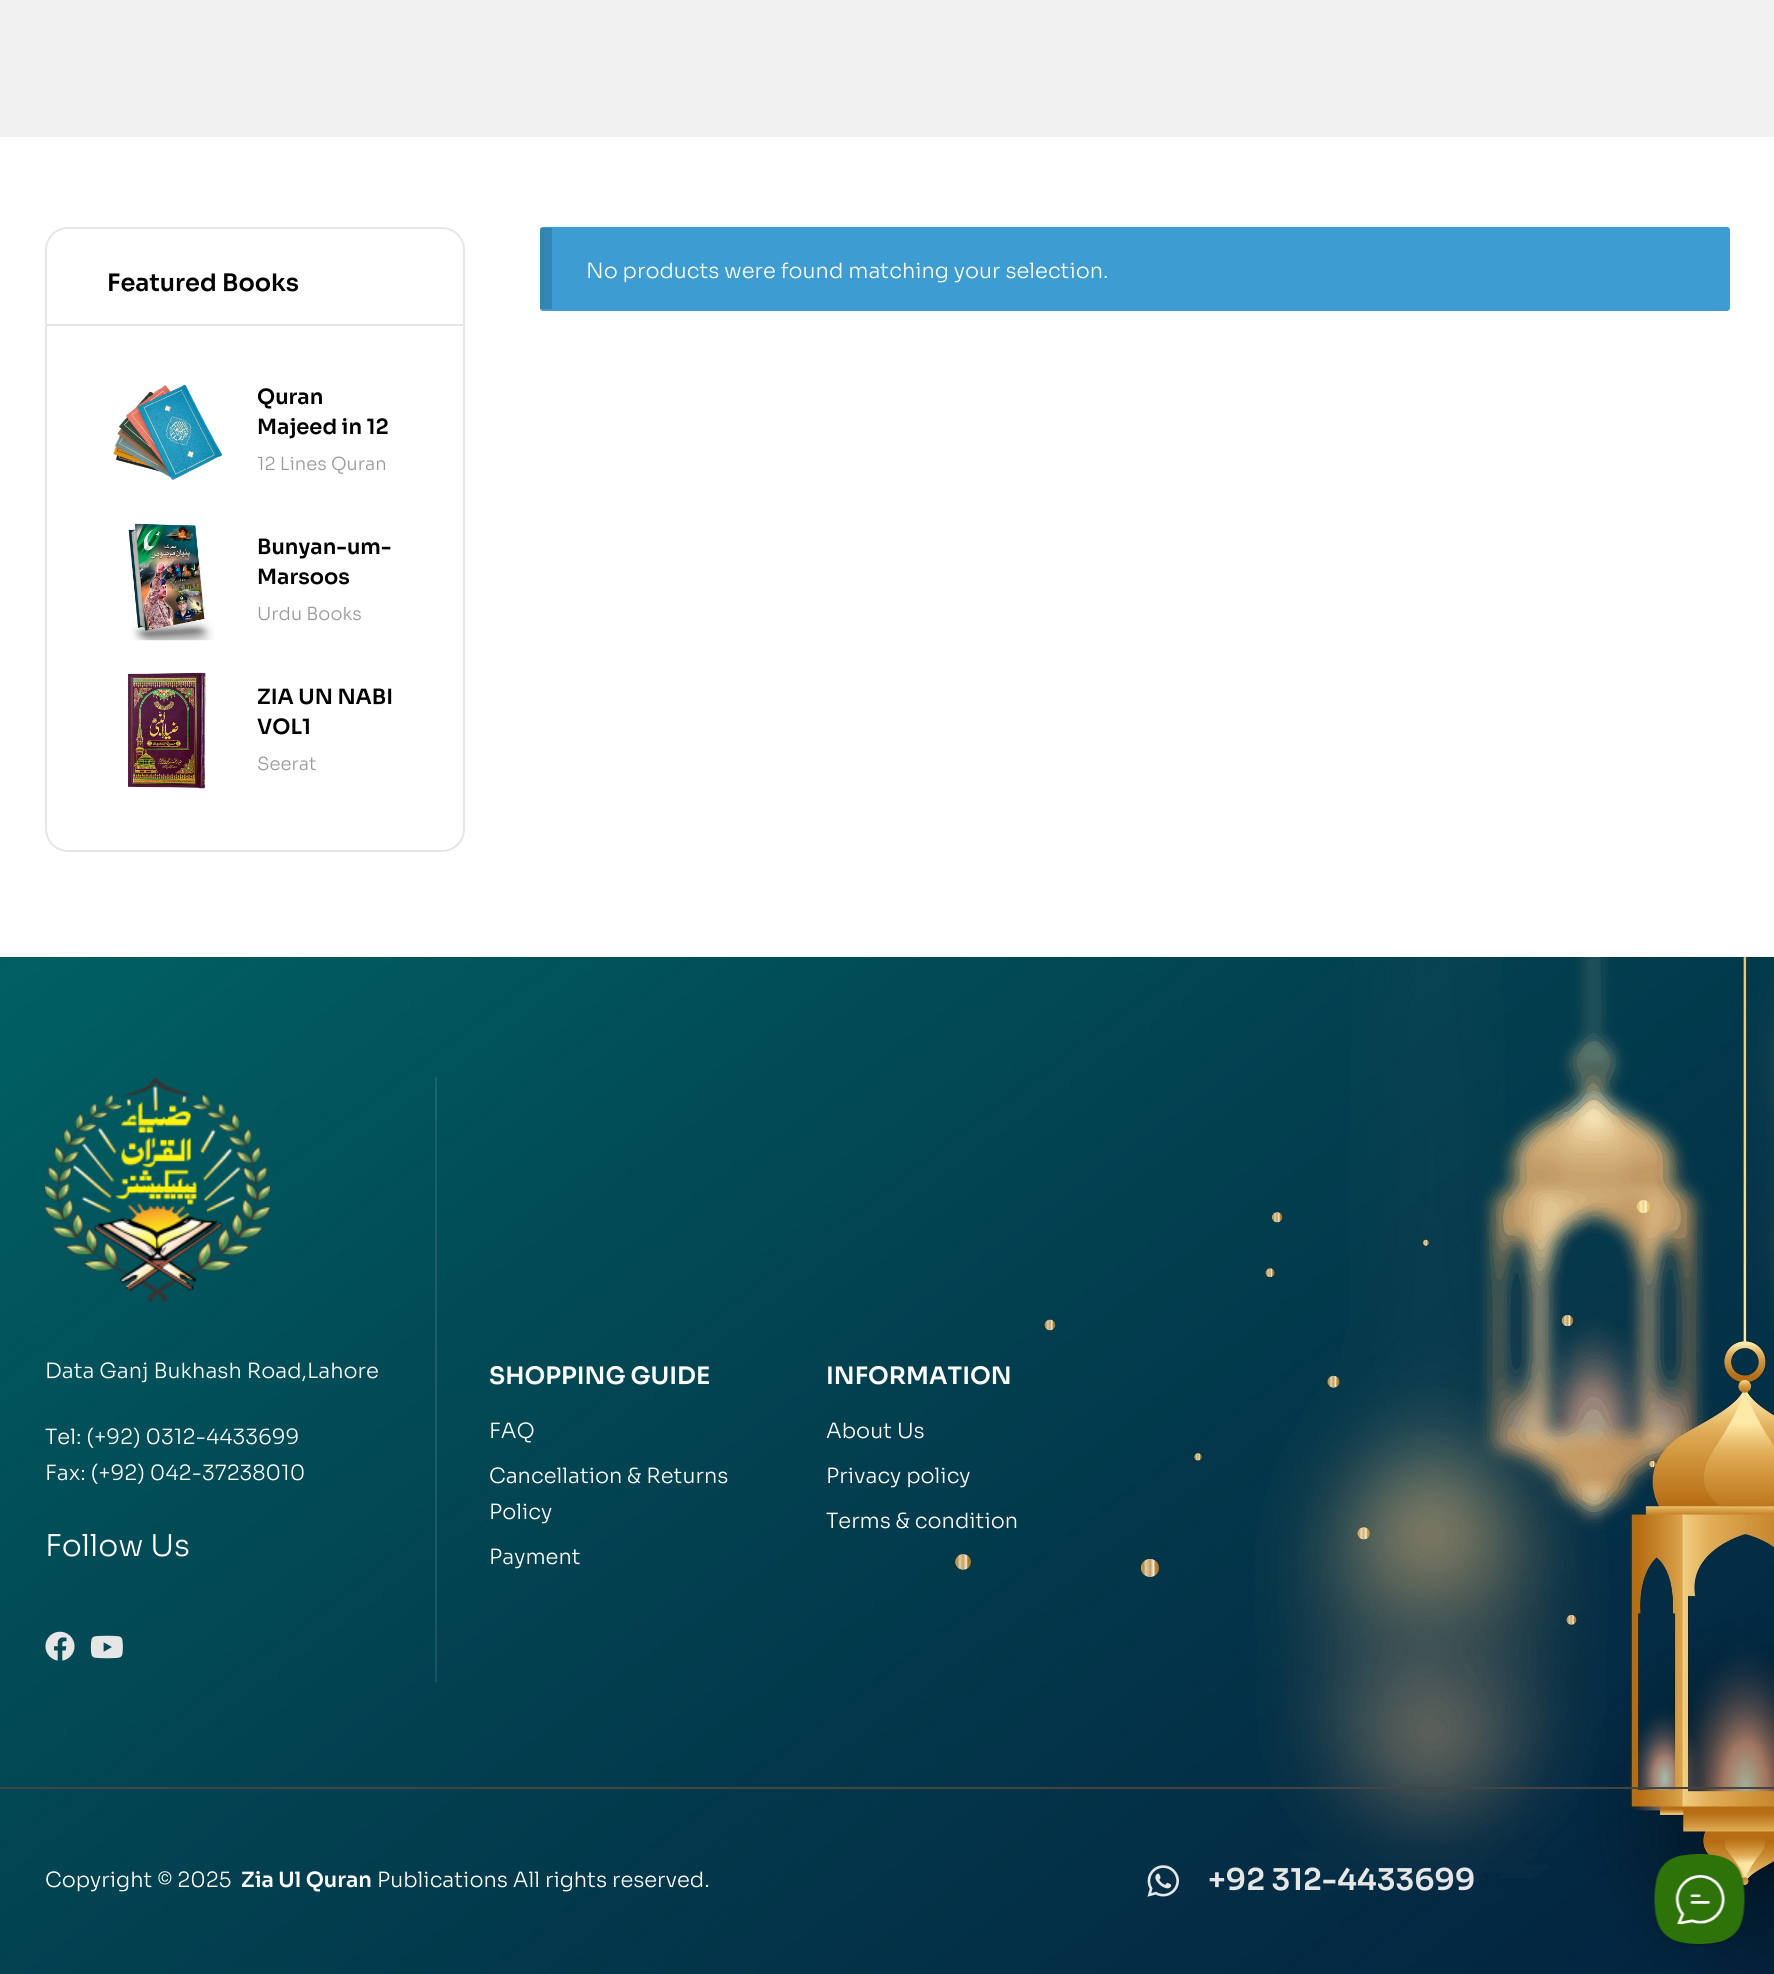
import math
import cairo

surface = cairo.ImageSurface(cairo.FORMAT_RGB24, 1774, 1974)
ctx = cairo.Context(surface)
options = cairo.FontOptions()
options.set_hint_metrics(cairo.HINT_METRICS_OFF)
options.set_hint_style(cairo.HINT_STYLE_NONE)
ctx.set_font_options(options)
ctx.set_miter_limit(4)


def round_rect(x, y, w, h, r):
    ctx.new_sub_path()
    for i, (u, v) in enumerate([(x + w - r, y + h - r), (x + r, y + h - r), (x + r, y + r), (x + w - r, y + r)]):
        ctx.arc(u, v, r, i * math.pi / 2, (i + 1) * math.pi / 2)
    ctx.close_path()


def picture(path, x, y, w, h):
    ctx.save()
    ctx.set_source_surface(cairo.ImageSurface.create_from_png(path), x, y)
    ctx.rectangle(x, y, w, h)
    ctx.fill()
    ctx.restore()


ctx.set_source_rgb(1, 1, 1)
ctx.paint()
ctx.set_source_rgb(0.941, 0.941, 0.941)
ctx.rectangle(0, 0, 1774, 137)
ctx.fill()
round_rect(46, 228, 418, 623, 22)
ctx.set_source_rgb(0.902, 0.902, 0.902)
ctx.stroke()
ctx.rectangle(47, 324, 417, 2)
ctx.fill()
ctx.select_font_face("Sora SemiBold")
ctx.set_font_size(24)
ctx.set_source_rgb(0, 0, 0)
ctx.move_to(107, 291)
ctx.show_text("Featured Books")
picture("img1.png", 113, 384, 109, 97)
ctx.set_font_size(21)
ctx.move_to(257, 404)
ctx.show_text("Quran")
ctx.move_to(257, 434)
ctx.show_text("Majeed in 12")
ctx.select_font_face("Sora Light")
ctx.set_font_size(18)
ctx.set_source_rgb(0.6, 0.6, 0.6)
ctx.move_to(257, 470)
ctx.show_text("12 Lines Quran")
picture("img2.png", 128, 523, 86, 118)
ctx.select_font_face("Sora SemiBold")
ctx.set_font_size(21)
ctx.set_source_rgb(0, 0, 0)
ctx.move_to(257, 554)
ctx.show_text("Bunyan-um-")
ctx.move_to(257, 584)
ctx.show_text("Marsoos")
ctx.select_font_face("Sora Light")
ctx.set_font_size(18)
ctx.set_source_rgb(0.6, 0.6, 0.6)
ctx.move_to(257, 620)
ctx.show_text("Urdu Books")
picture("img3.png", 128, 672, 78, 117)
ctx.select_font_face("Sora SemiBold")
ctx.set_font_size(21)
ctx.set_source_rgb(0, 0, 0)
ctx.move_to(257, 704)
ctx.show_text("ZIA UN NABI")
ctx.move_to(257, 734)
ctx.show_text("VOL1")
ctx.select_font_face("Sora Light")
ctx.set_font_size(18)
ctx.set_source_rgb(0.6, 0.6, 0.6)
ctx.move_to(257, 770)
ctx.show_text("Seerat")
ctx.set_source_rgb(0.239, 0.612, 0.824)
round_rect(540, 227, 1190, 84, 3)
ctx.fill()
ctx.set_source_rgba(0, 0, 0, 0.15)
ctx.rectangle(540, 228, 12, 81)
ctx.fill()
ctx.set_font_size(21)
ctx.set_source_rgb(1, 1, 1)
ctx.move_to(586, 278)
ctx.show_text("No products were found matching your selection.")
picture("img4.png", 0, 957, 1774, 1017)
ctx.set_source_rgba(1, 1, 1, 0.1)
ctx.rectangle(435, 1077, 2, 605)
ctx.fill()
picture("img5.png", 45, 1077, 225, 225)
ctx.set_source_rgb(1, 1, 1)
ctx.move_to(45, 1378)
ctx.show_text("Data Ganj Bukhash Road,Lahore")
ctx.move_to(45, 1444)
ctx.show_text("Tel: (+92) 0312-4433699")
ctx.move_to(45, 1480)
ctx.show_text("Fax: (+92) 042-37238010")
ctx.set_font_size(30)
ctx.move_to(45, 1556)
ctx.show_text("Follow Us")
picture("img6.png", 45, 1631, 30, 30)
picture("img7.png", 90, 1635, 33, 24)
ctx.select_font_face("Sora SemiBold")
ctx.set_font_size(24)
ctx.move_to(489, 1384)
ctx.show_text("SHOPPING GUIDE")
ctx.select_font_face("Sora Light")
ctx.set_font_size(21)
ctx.move_to(489, 1438)
ctx.show_text("FAQ")
ctx.move_to(489, 1483)
ctx.show_text("Cancellation & Returns")
ctx.move_to(489, 1519)
ctx.show_text("Policy")
ctx.move_to(489, 1564)
ctx.show_text("Payment")
ctx.select_font_face("Sora SemiBold")
ctx.set_font_size(24)
ctx.move_to(826, 1384)
ctx.show_text("INFORMATION")
ctx.select_font_face("Sora Light")
ctx.set_font_size(21)
ctx.move_to(826, 1438)
ctx.show_text("About Us")
ctx.move_to(826, 1483)
ctx.show_text("Privacy policy")
ctx.move_to(826, 1528)
ctx.show_text("Terms & condition")
ctx.set_source_rgb(0.267, 0.267, 0.267)
ctx.rectangle(0, 1787, 1774, 2)
ctx.fill()
ctx.set_source_rgb(1, 1, 1)
ctx.move_to(45, 1887)
ctx.show_text("Copyright © 2025")
ctx.select_font_face("Sora SemiBold")
ctx.move_to(241, 1887)
ctx.show_text("Zia Ul Quran")
ctx.select_font_face("Sora Light")
ctx.move_to(377, 1887)
ctx.show_text("Publications All rights reserved.")
picture("img8.png", 1147, 1865, 32, 32)
ctx.select_font_face("Sora SemiBold")
ctx.set_font_size(30)
ctx.set_source_rgb(0.902, 0.902, 0.902)
ctx.move_to(1208, 1890)
ctx.show_text("+92 312-4433699")
picture("img9.png", 1654, 1851, 94, 96)
surface.write_to_png("page.png")
